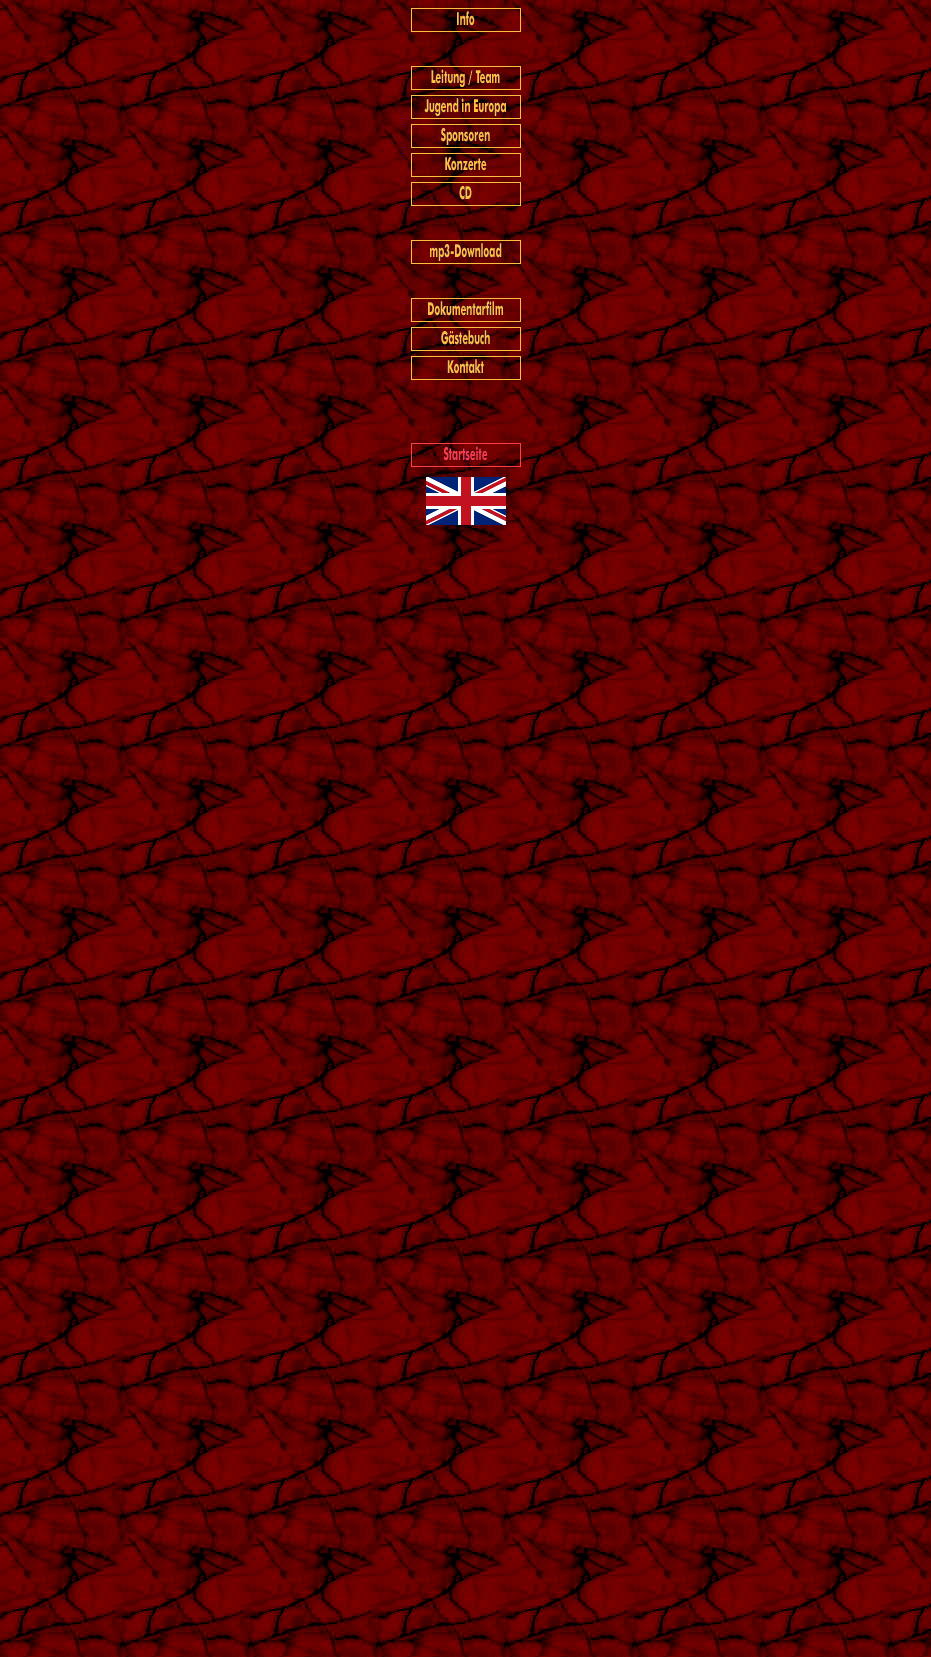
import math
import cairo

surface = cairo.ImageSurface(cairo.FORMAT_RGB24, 931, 1657)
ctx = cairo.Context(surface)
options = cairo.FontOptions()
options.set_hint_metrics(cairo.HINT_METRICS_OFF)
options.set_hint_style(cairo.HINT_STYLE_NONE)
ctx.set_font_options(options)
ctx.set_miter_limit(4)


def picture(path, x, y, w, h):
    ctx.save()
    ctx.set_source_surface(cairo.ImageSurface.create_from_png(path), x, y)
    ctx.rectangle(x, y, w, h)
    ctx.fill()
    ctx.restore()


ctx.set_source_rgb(1, 1, 1)
ctx.paint()
picture("img1.png", 0, 0, 931, 1657)
picture("img2.png", 411, 8, 110, 24)
picture("img3.png", 411, 66, 110, 24)
picture("img4.png", 411, 95, 110, 24)
picture("img5.png", 411, 124, 110, 24)
picture("img6.png", 411, 153, 110, 24)
picture("img7.png", 411, 182, 110, 24)
picture("img8.png", 411, 240, 110, 24)
picture("img9.png", 411, 298, 110, 24)
picture("img10.png", 411, 327, 110, 24)
picture("img11.png", 411, 356, 110, 24)
picture("img12.png", 411, 443, 110, 24)
picture("img13.png", 426, 477, 80, 48)
surface.write_to_png("page.png")
